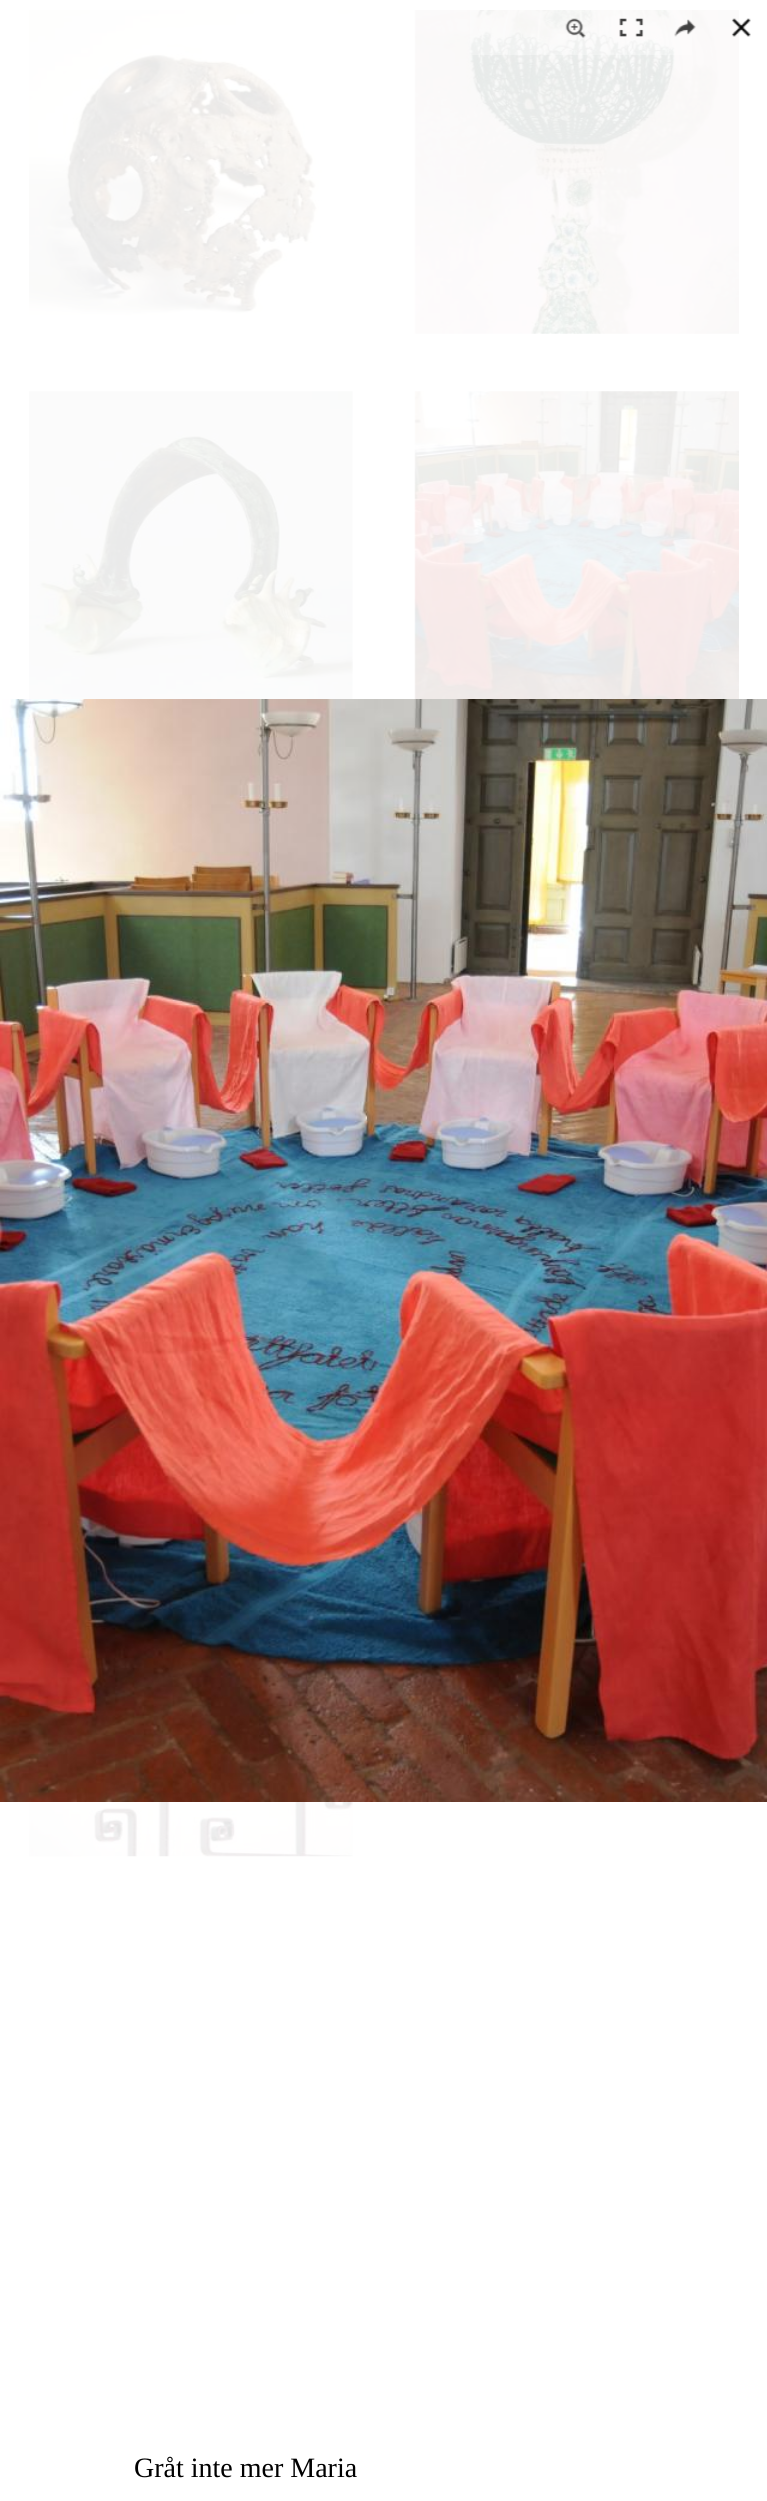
import math
import cairo

surface = cairo.ImageSurface(cairo.FORMAT_RGB24, 767, 2501)
ctx = cairo.Context(surface)
options = cairo.FontOptions()
options.set_hint_metrics(cairo.HINT_METRICS_OFF)
options.set_hint_style(cairo.HINT_STYLE_NONE)
ctx.set_font_options(options)
ctx.set_miter_limit(4)


def picture(path, x, y, w, h):
    ctx.save()
    ctx.set_source_surface(cairo.ImageSurface.create_from_png(path), x, y)
    ctx.rectangle(x, y, w, h)
    ctx.fill()
    ctx.restore()


ctx.set_source_rgb(1, 1, 1)
ctx.paint()
picture("img1.png", 29, 10, 324, 307)
picture("img2.png", 414, 10, 325, 324)
picture("img3.png", 29, 391, 324, 308)
picture("img4.png", 414, 391, 325, 308)
picture("img5.png", 29, 1802, 324, 55)
picture("img6.png", 0, 699, 767, 1103)
ctx.set_source_rgba(1, 1, 1, 0.3)
ctx.rectangle(470, 10, 222, 45)
ctx.fill()
picture("img7.png", 565, 18, 21, 20)
picture("img8.png", 619, 18, 25, 19)
picture("img9.png", 674, 19, 22, 18)
picture("img10.png", 731, 18, 20, 19)
ctx.select_font_face("Liberation Serif")
ctx.set_font_size(28)
ctx.set_source_rgb(0, 0, 0)
ctx.move_to(134, 2477)
ctx.show_text("Gråt inte mer Maria")
surface.write_to_png("page.png")
